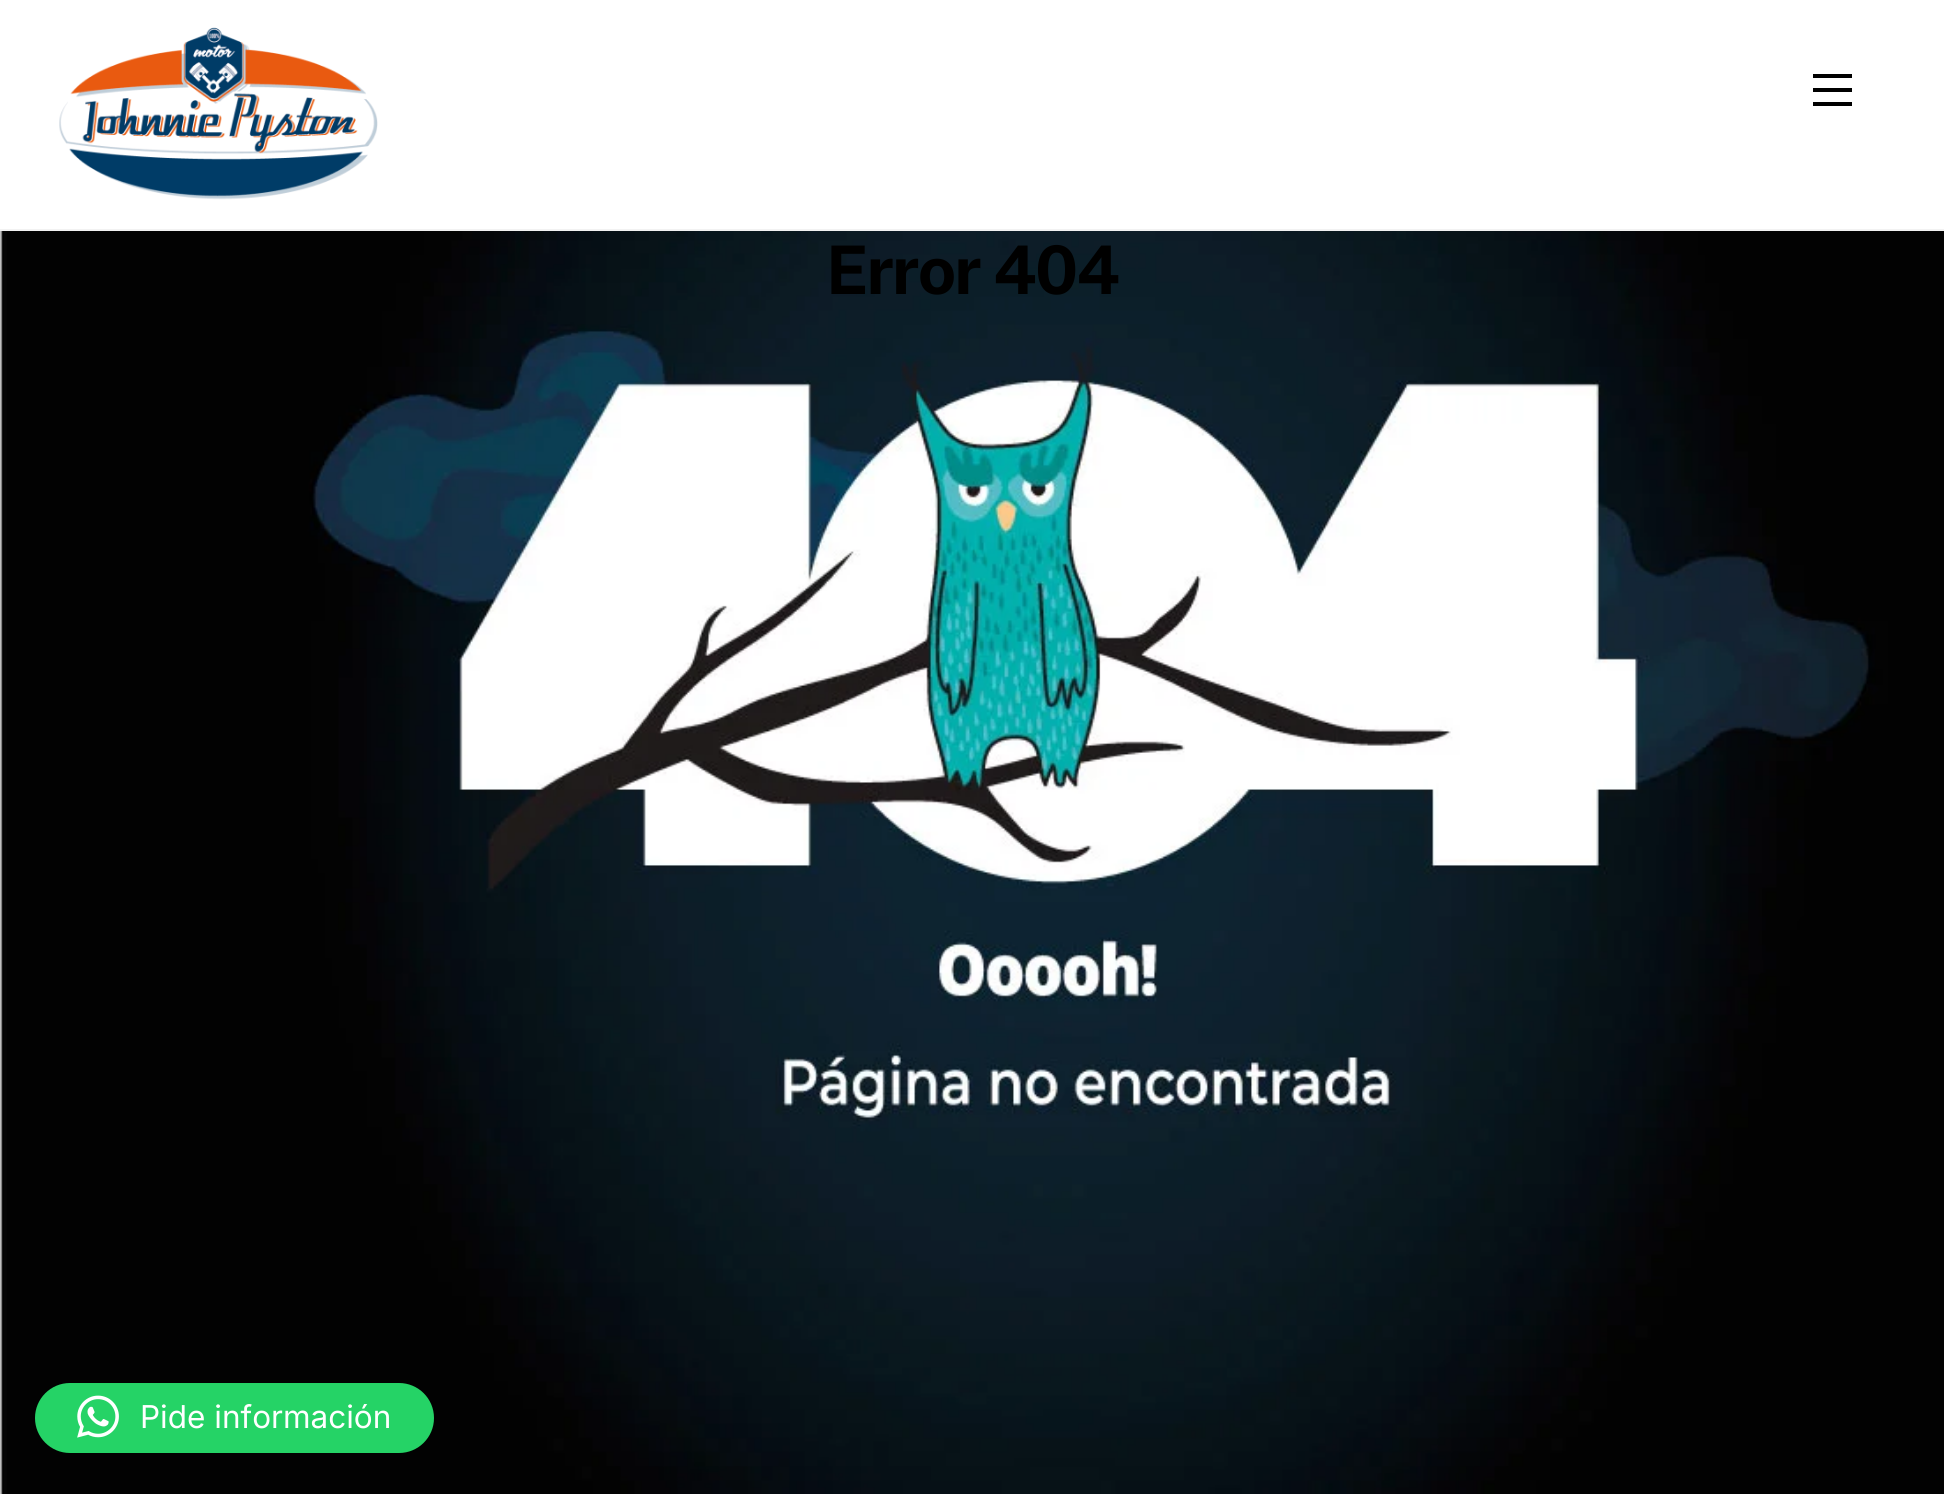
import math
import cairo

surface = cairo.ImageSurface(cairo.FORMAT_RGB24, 1944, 1494)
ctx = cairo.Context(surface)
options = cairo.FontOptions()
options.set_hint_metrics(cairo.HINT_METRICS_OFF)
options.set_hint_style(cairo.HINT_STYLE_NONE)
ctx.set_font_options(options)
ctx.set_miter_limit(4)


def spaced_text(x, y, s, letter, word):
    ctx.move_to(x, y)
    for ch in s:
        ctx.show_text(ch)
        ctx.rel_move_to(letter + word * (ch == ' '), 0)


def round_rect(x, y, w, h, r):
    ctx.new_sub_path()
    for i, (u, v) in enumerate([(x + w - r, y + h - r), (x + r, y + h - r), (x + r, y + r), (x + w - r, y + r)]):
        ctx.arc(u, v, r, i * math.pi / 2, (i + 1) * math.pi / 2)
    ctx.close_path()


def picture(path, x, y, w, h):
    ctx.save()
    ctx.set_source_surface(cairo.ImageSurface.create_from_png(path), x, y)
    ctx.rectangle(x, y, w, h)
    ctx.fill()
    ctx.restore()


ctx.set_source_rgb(1, 1, 1)
ctx.paint()
picture("img1.png", 0, 231, 1944, 1263)
ctx.set_source_rgb(0.949, 0.949, 0.949)
ctx.rectangle(0, 229, 1944, 2)
ctx.fill()
picture("img2.png", 59, 27, 319, 173)
ctx.set_source_rgb(0, 0, 0)
ctx.rectangle(1813, 102, 39, 4)
ctx.fill()
ctx.rectangle(1813, 74, 39, 4)
ctx.fill()
ctx.rectangle(1813, 88, 39, 4)
ctx.fill()
ctx.select_font_face("Public Sans", cairo.FONT_SLANT_NORMAL, cairo.FONT_WEIGHT_BOLD)
ctx.set_font_size(67)
spaced_text(826, 294, "Error 404", -2, 0)
ctx.set_source_rgb(0.145, 0.827, 0.4)
round_rect(35, 1383, 399, 70, 35)
ctx.fill()
picture("img3.png", 77, 1395, 42, 43)
ctx.select_font_face("Inter")
ctx.set_font_size(31.5)
ctx.set_source_rgb(1, 1, 1)
ctx.move_to(140, 1428)
ctx.show_text("Pide información")
surface.write_to_png("page.png")
